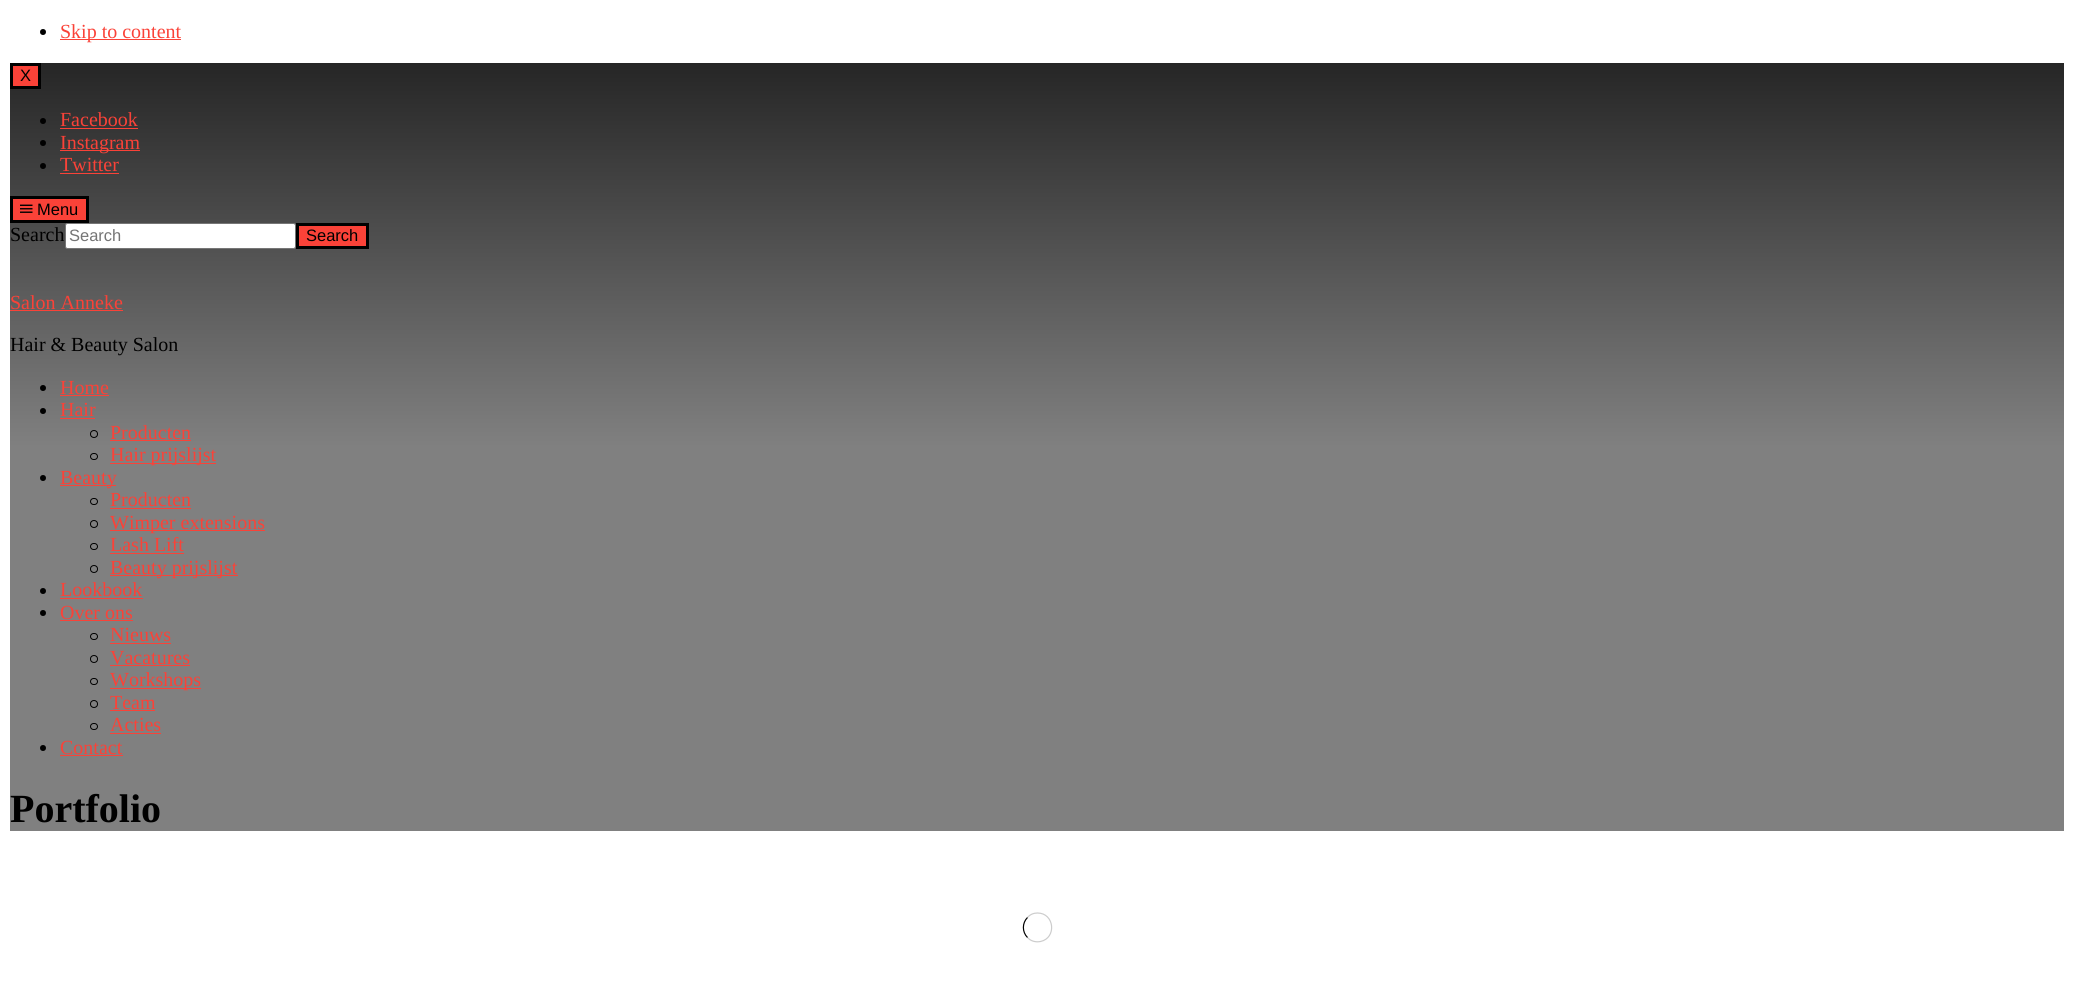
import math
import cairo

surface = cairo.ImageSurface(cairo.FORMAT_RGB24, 2073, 999)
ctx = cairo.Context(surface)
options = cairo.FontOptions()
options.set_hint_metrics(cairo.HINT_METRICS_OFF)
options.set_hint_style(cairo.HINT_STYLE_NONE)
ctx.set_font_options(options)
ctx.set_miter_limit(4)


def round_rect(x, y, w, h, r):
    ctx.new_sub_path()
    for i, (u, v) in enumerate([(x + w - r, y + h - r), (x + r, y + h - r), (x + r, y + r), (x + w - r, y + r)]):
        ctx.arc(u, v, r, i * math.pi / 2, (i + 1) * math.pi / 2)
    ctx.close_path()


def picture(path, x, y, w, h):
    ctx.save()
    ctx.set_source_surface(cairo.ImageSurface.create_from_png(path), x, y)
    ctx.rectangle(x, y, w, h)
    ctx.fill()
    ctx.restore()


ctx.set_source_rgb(1, 1, 1)
ctx.paint()
ctx.set_source_rgb(0, 0, 0)
ctx.arc(43, 32, 3, 0, 2 * math.pi)
ctx.fill()
ctx.set_source_rgb(0.98, 0.259, 0.22)
ctx.rectangle(60, 39, 121, 1)
ctx.fill()
ctx.select_font_face("Liberation Serif")
ctx.set_font_size(20)
ctx.move_to(60, 38)
ctx.show_text("Skip to content")
gradient = cairo.LinearGradient(1037, 831, 1037, 63)
gradient.add_color_stop_rgba(0.5, 0.502, 0.502, 0.502, 1)
gradient.add_color_stop_rgba(1, 0.149, 0.149, 0.149, 1)
ctx.set_source(gradient)
ctx.rectangle(10, 63, 2054, 768)
ctx.fill()
ctx.set_source_rgb(0.98, 0.259, 0.22)
ctx.rectangle(11.5, 64.5, 28, 23)
ctx.fill_preserve()
ctx.set_source_rgb(0, 0, 0)
ctx.set_line_width(3)
ctx.stroke()
ctx.select_font_face("Liberation Sans")
ctx.set_font_size(16.5)
ctx.move_to(20, 81)
ctx.show_text("X")
ctx.new_path()
ctx.arc(43, 121, 3, 0, 2 * math.pi)
ctx.fill()
ctx.select_font_face("Liberation Serif")
ctx.set_font_size(20)
ctx.set_source_rgb(0.98, 0.259, 0.22)
ctx.move_to(60, 126)
ctx.show_text("Facebook")
ctx.rectangle(60, 128, 78, 1)
ctx.fill()
ctx.set_source_rgb(0, 0, 0)
ctx.arc(43, 143, 3, 0, 2 * math.pi)
ctx.fill()
ctx.set_source_rgb(0.98, 0.259, 0.22)
ctx.rectangle(60, 150, 80, 1)
ctx.fill()
ctx.move_to(60, 149)
ctx.show_text("Instagram")
ctx.set_source_rgb(0, 0, 0)
ctx.new_path()
ctx.arc(43, 166, 3, 0, 2 * math.pi)
ctx.fill()
ctx.set_source_rgb(0.98, 0.259, 0.22)
ctx.move_to(60, 171)
ctx.show_text("Twitter")
ctx.rectangle(60, 173, 59, 1)
ctx.fill()
ctx.rectangle(11.5, 197.5, 76, 24)
ctx.fill_preserve()
ctx.set_source_rgb(0, 0, 0)
ctx.stroke()
picture("img1.png", 20, 204, 13, 9)
ctx.select_font_face("Liberation Sans")
ctx.set_font_size(16.5)
ctx.move_to(37, 215)
ctx.show_text("Menu")
ctx.select_font_face("Liberation Serif")
ctx.set_font_size(20)
ctx.move_to(10, 241)
ctx.show_text("Search")
ctx.set_source_rgb(1, 1, 1)
round_rect(65.5, 223.5, 230, 25, 2)
ctx.fill_preserve()
ctx.set_source_rgb(0.463, 0.463, 0.463)
ctx.set_line_width(1)
ctx.stroke()
ctx.select_font_face("Liberation Sans")
ctx.set_font_size(16.5)
ctx.set_source_rgb(0.459, 0.459, 0.459)
ctx.move_to(69, 241)
ctx.show_text("Search")
ctx.set_source_rgb(0.98, 0.259, 0.22)
ctx.rectangle(297.5, 224.5, 70, 23)
ctx.fill_preserve()
ctx.set_source_rgb(0, 0, 0)
ctx.set_line_width(3)
ctx.stroke()
ctx.move_to(306, 241)
ctx.show_text("Search")
ctx.select_font_face("Liberation Serif")
ctx.set_font_size(20)
ctx.set_source_rgb(0.98, 0.259, 0.22)
ctx.move_to(10, 309)
ctx.show_text("Salon Anneke")
ctx.rectangle(10, 310, 113, 1)
ctx.fill()
ctx.set_source_rgb(0, 0, 0)
ctx.move_to(10, 351)
ctx.show_text("Hair & Beauty Salon")
ctx.new_path()
ctx.arc(43, 388, 3, 0, 2 * math.pi)
ctx.fill()
ctx.set_source_rgb(0.98, 0.259, 0.22)
ctx.move_to(60, 394)
ctx.show_text("Home")
ctx.rectangle(60, 395, 49, 1)
ctx.fill()
ctx.set_source_rgb(0, 0, 0)
ctx.arc(43, 411, 3, 0, 2 * math.pi)
ctx.fill()
ctx.set_source_rgb(0.98, 0.259, 0.22)
ctx.move_to(60, 416)
ctx.show_text("Hair")
ctx.rectangle(60, 418, 35, 1)
ctx.fill()
ctx.arc(94, 434, 3.5, 0, 2 * math.pi)
ctx.set_source_rgb(0, 0, 0)
ctx.set_line_width(1)
ctx.stroke()
ctx.set_source_rgb(0.98, 0.259, 0.22)
ctx.move_to(110, 439)
ctx.show_text("Producten")
ctx.rectangle(110, 440, 81, 1)
ctx.fill()
round_rect(90.5, 453.5, 7, 6, 3)
ctx.set_source_rgb(0, 0, 0)
ctx.stroke()
ctx.set_source_rgb(0.98, 0.259, 0.22)
ctx.rectangle(110, 463, 106, 1)
ctx.fill()
ctx.move_to(110, 461)
ctx.show_text("Hair prijslijst")
ctx.set_source_rgb(0, 0, 0)
ctx.new_path()
ctx.arc(43, 478, 3, 0, 2 * math.pi)
ctx.fill()
ctx.set_source_rgb(0.98, 0.259, 0.22)
ctx.rectangle(60, 485, 56, 1)
ctx.fill()
ctx.move_to(60, 484)
ctx.show_text("Beauty")
round_rect(90.5, 498.5, 7, 6, 3)
ctx.set_source_rgb(0, 0, 0)
ctx.stroke()
ctx.set_source_rgb(0.98, 0.259, 0.22)
ctx.move_to(110, 506)
ctx.show_text("Producten")
ctx.rectangle(110, 508, 81, 1)
ctx.fill()
ctx.arc(94, 524, 3.5, 0, 2 * math.pi)
ctx.set_source_rgb(0, 0, 0)
ctx.stroke()
ctx.set_source_rgb(0.98, 0.259, 0.22)
ctx.rectangle(110, 530, 155, 1)
ctx.fill()
ctx.move_to(110, 529)
ctx.show_text("Wimper extensions")
round_rect(90.5, 543.5, 7, 6, 3)
ctx.set_source_rgb(0, 0, 0)
ctx.stroke()
ctx.set_source_rgb(0.98, 0.259, 0.22)
ctx.move_to(110, 551)
ctx.show_text("Lash Lift")
ctx.rectangle(110, 553, 74, 1)
ctx.fill()
ctx.arc(94, 569, 3.5, 0, 2 * math.pi)
ctx.set_source_rgb(0, 0, 0)
ctx.stroke()
ctx.set_source_rgb(0.98, 0.259, 0.22)
ctx.rectangle(110, 575, 128, 1)
ctx.fill()
ctx.move_to(110, 574)
ctx.show_text("Beauty prijslijst")
ctx.set_source_rgb(0, 0, 0)
ctx.new_path()
ctx.arc(43, 591, 3, 0, 2 * math.pi)
ctx.fill()
ctx.set_source_rgb(0.98, 0.259, 0.22)
ctx.move_to(60, 596)
ctx.show_text("Lookbook")
ctx.rectangle(60, 598, 83, 1)
ctx.fill()
ctx.set_source_rgb(0, 0, 0)
ctx.arc(43, 613, 3, 0, 2 * math.pi)
ctx.fill()
ctx.set_source_rgb(0.98, 0.259, 0.22)
ctx.move_to(60, 619)
ctx.show_text("Over ons")
ctx.rectangle(60, 620, 73, 1)
ctx.fill()
round_rect(90.5, 633.5, 7, 6, 3)
ctx.set_source_rgb(0, 0, 0)
ctx.stroke()
ctx.set_source_rgb(0.98, 0.259, 0.22)
ctx.move_to(110, 641)
ctx.show_text("Nieuws")
ctx.rectangle(110, 643, 61, 1)
ctx.fill()
ctx.arc(94, 659, 3.5, 0, 2 * math.pi)
ctx.set_source_rgb(0, 0, 0)
ctx.stroke()
ctx.set_source_rgb(0.98, 0.259, 0.22)
ctx.move_to(110, 664)
ctx.show_text("Vacatures")
ctx.rectangle(110, 665, 80, 1)
ctx.fill()
round_rect(90.5, 678.5, 7, 6, 3)
ctx.set_source_rgb(0, 0, 0)
ctx.stroke()
ctx.set_source_rgb(0.98, 0.259, 0.22)
ctx.rectangle(110, 688, 91, 1)
ctx.fill()
ctx.move_to(110, 686)
ctx.show_text("Workshops")
ctx.new_path()
ctx.arc(94, 704, 3.5, 0, 2 * math.pi)
ctx.set_source_rgb(0, 0, 0)
ctx.stroke()
ctx.set_source_rgb(0.98, 0.259, 0.22)
ctx.move_to(110, 709)
ctx.show_text("Team")
ctx.rectangle(110, 710, 45, 1)
ctx.fill()
round_rect(90.5, 723.5, 7, 6, 3)
ctx.set_source_rgb(0, 0, 0)
ctx.stroke()
ctx.set_source_rgb(0.98, 0.259, 0.22)
ctx.move_to(110, 731)
ctx.show_text("Acties")
ctx.rectangle(110, 733, 51, 1)
ctx.fill()
ctx.set_source_rgb(0, 0, 0)
ctx.arc(43, 748, 3, 0, 2 * math.pi)
ctx.fill()
ctx.set_source_rgb(0.98, 0.259, 0.22)
ctx.move_to(60, 754)
ctx.show_text("Contact")
ctx.rectangle(60, 755, 63, 1)
ctx.fill()
ctx.select_font_face("Liberation Serif", cairo.FONT_SLANT_NORMAL, cairo.FONT_WEIGHT_BOLD)
ctx.set_font_size(40)
ctx.set_source_rgb(0, 0, 0)
ctx.move_to(10, 822)
ctx.show_text("Portfolio")
ctx.new_path()
ctx.move_to(1027.5, 917.5)
ctx.curve_to(1030, 914.5, 1033.5, 913, 1037.5, 913)
ctx.curve_to(1054.5, 913, 1057, 938, 1040.5, 941.5)
ctx.curve_to(1035.5, 942.5, 1030.5, 941, 1027.5, 937.5)
ctx.set_source_rgb(0.8, 0.8, 0.8)
ctx.set_line_width(1.2)
ctx.stroke()
ctx.new_path()
ctx.move_to(1027.5, 937.5)
ctx.curve_to(1022, 932, 1022, 923, 1027.5, 917.5)
ctx.set_source_rgb(0, 0, 0)
ctx.stroke()
surface.write_to_png("page.png")
